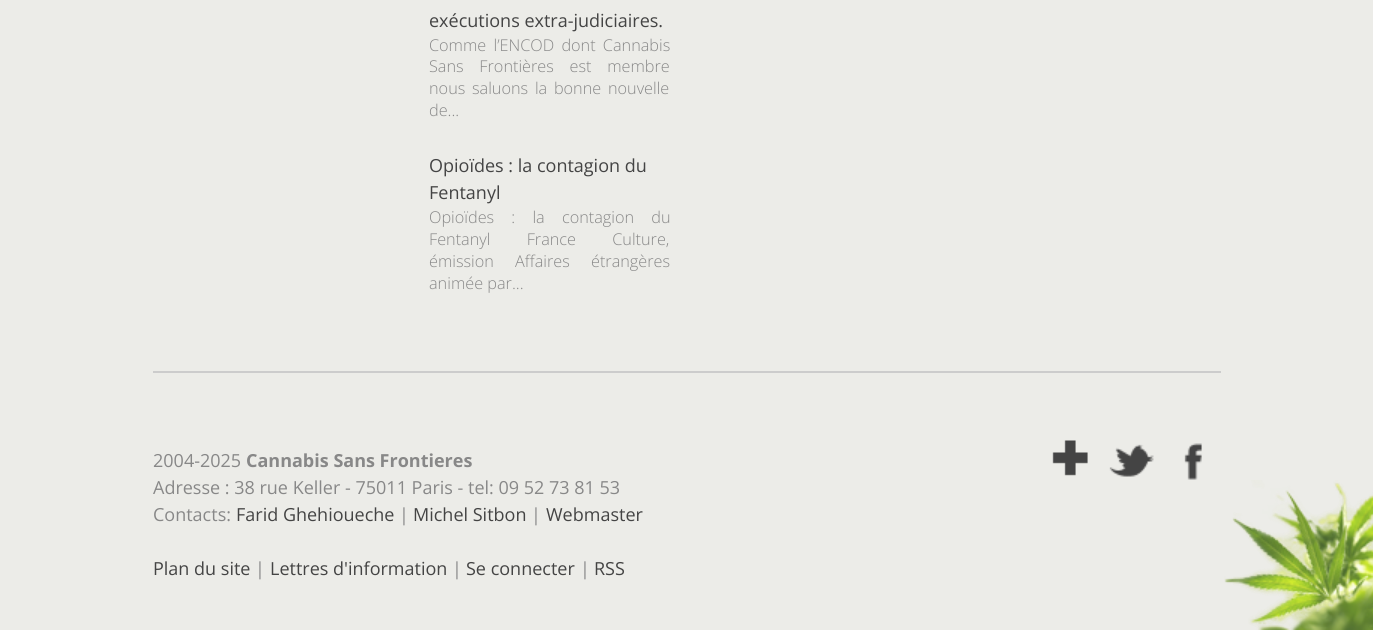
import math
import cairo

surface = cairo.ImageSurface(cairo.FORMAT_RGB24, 1373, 630)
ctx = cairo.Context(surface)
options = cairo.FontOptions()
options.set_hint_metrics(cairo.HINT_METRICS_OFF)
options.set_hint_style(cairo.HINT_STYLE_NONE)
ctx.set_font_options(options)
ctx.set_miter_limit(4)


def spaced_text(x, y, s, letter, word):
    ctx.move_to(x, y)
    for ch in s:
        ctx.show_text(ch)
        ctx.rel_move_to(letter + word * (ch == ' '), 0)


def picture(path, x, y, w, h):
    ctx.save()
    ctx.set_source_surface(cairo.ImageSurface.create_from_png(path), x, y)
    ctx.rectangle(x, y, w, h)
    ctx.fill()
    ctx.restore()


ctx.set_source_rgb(0.922, 0.922, 0.91)
ctx.paint()
ctx.select_font_face("Open Sans")
ctx.set_font_size(18)
ctx.set_source_rgb(0.267, 0.267, 0.267)
ctx.move_to(429, 27)
ctx.show_text("exécutions extra-judiciaires.")
ctx.select_font_face("Open Sans Light")
ctx.set_font_size(16.25)
ctx.set_source_rgb(0.533, 0.533, 0.533)
spaced_text(429, 51, "Comme l’ENCOD dont Cannabis", 0, 3)
spaced_text(429, 72, "Sans Frontières est membre", 0, 11.5)
spaced_text(429, 94, "nous saluons la bonne nouvelle", 0, 2.5)
ctx.move_to(429, 116)
ctx.show_text("de...")
ctx.select_font_face("Open Sans")
ctx.set_font_size(18)
ctx.set_source_rgb(0.267, 0.267, 0.267)
ctx.move_to(429, 172)
ctx.show_text("Opioïdes : la contagion du")
ctx.move_to(429, 199)
ctx.show_text("Fentanyl")
ctx.select_font_face("Open Sans Light")
ctx.set_font_size(16.25)
ctx.set_source_rgb(0.533, 0.533, 0.533)
spaced_text(429, 223, "Opioïdes : la contagion du", 0, 13)
spaced_text(429, 245, "Fentanyl France Culture,", 0, 32)
spaced_text(429, 267, "émission Affaires étrangères", 0, 17)
ctx.move_to(429, 289)
ctx.show_text("animée par...")
ctx.set_source_rgb(0.8, 0.8, 0.8)
ctx.rectangle(153, 371, 1068, 2)
ctx.fill()
ctx.select_font_face("Open Sans")
ctx.set_font_size(18)
ctx.set_source_rgb(0.533, 0.533, 0.533)
ctx.move_to(153, 467)
ctx.show_text("2004-2025")
ctx.select_font_face("Open Sans", cairo.FONT_SLANT_NORMAL, cairo.FONT_WEIGHT_BOLD)
ctx.move_to(246, 467)
ctx.show_text("Cannabis Sans Frontieres")
ctx.select_font_face("Open Sans")
ctx.move_to(153, 494)
ctx.show_text("Adresse : 38 rue Keller - 75011 Paris - tel: 09 52 73 81 53")
ctx.move_to(153, 521)
ctx.show_text("Contacts:")
ctx.set_source_rgb(0.267, 0.267, 0.267)
ctx.move_to(236, 521)
ctx.show_text("Farid Ghehioueche")
ctx.set_source_rgb(0.533, 0.533, 0.533)
ctx.move_to(399, 521)
ctx.show_text("|")
ctx.set_source_rgb(0.267, 0.267, 0.267)
ctx.move_to(413, 521)
ctx.show_text("Michel Sitbon")
ctx.set_source_rgb(0.533, 0.533, 0.533)
ctx.move_to(531, 521)
ctx.show_text("|")
ctx.set_source_rgb(0.267, 0.267, 0.267)
ctx.move_to(546, 521)
ctx.show_text("Webmaster")
ctx.move_to(153, 575)
ctx.show_text("Plan du site")
ctx.set_source_rgb(0.533, 0.533, 0.533)
ctx.move_to(255, 575)
ctx.show_text("|")
ctx.set_source_rgb(0.267, 0.267, 0.267)
ctx.move_to(270, 575)
ctx.show_text("Lettres d'information")
ctx.set_source_rgb(0.533, 0.533, 0.533)
ctx.move_to(452, 575)
ctx.show_text("|")
ctx.set_source_rgb(0.267, 0.267, 0.267)
ctx.move_to(466, 575)
ctx.show_text("Se connecter")
ctx.set_source_rgb(0.533, 0.533, 0.533)
ctx.move_to(580, 575)
ctx.show_text("|")
ctx.set_source_rgb(0.267, 0.267, 0.267)
ctx.move_to(594, 575)
ctx.show_text("RSS")
picture("img1.png", 1052, 440, 36, 36)
picture("img2.png", 1109, 444, 45, 33)
picture("img3.png", 1184, 443, 18, 37)
picture("img4.png", 1224, 480, 149, 150)
surface.write_to_png("page.png")
